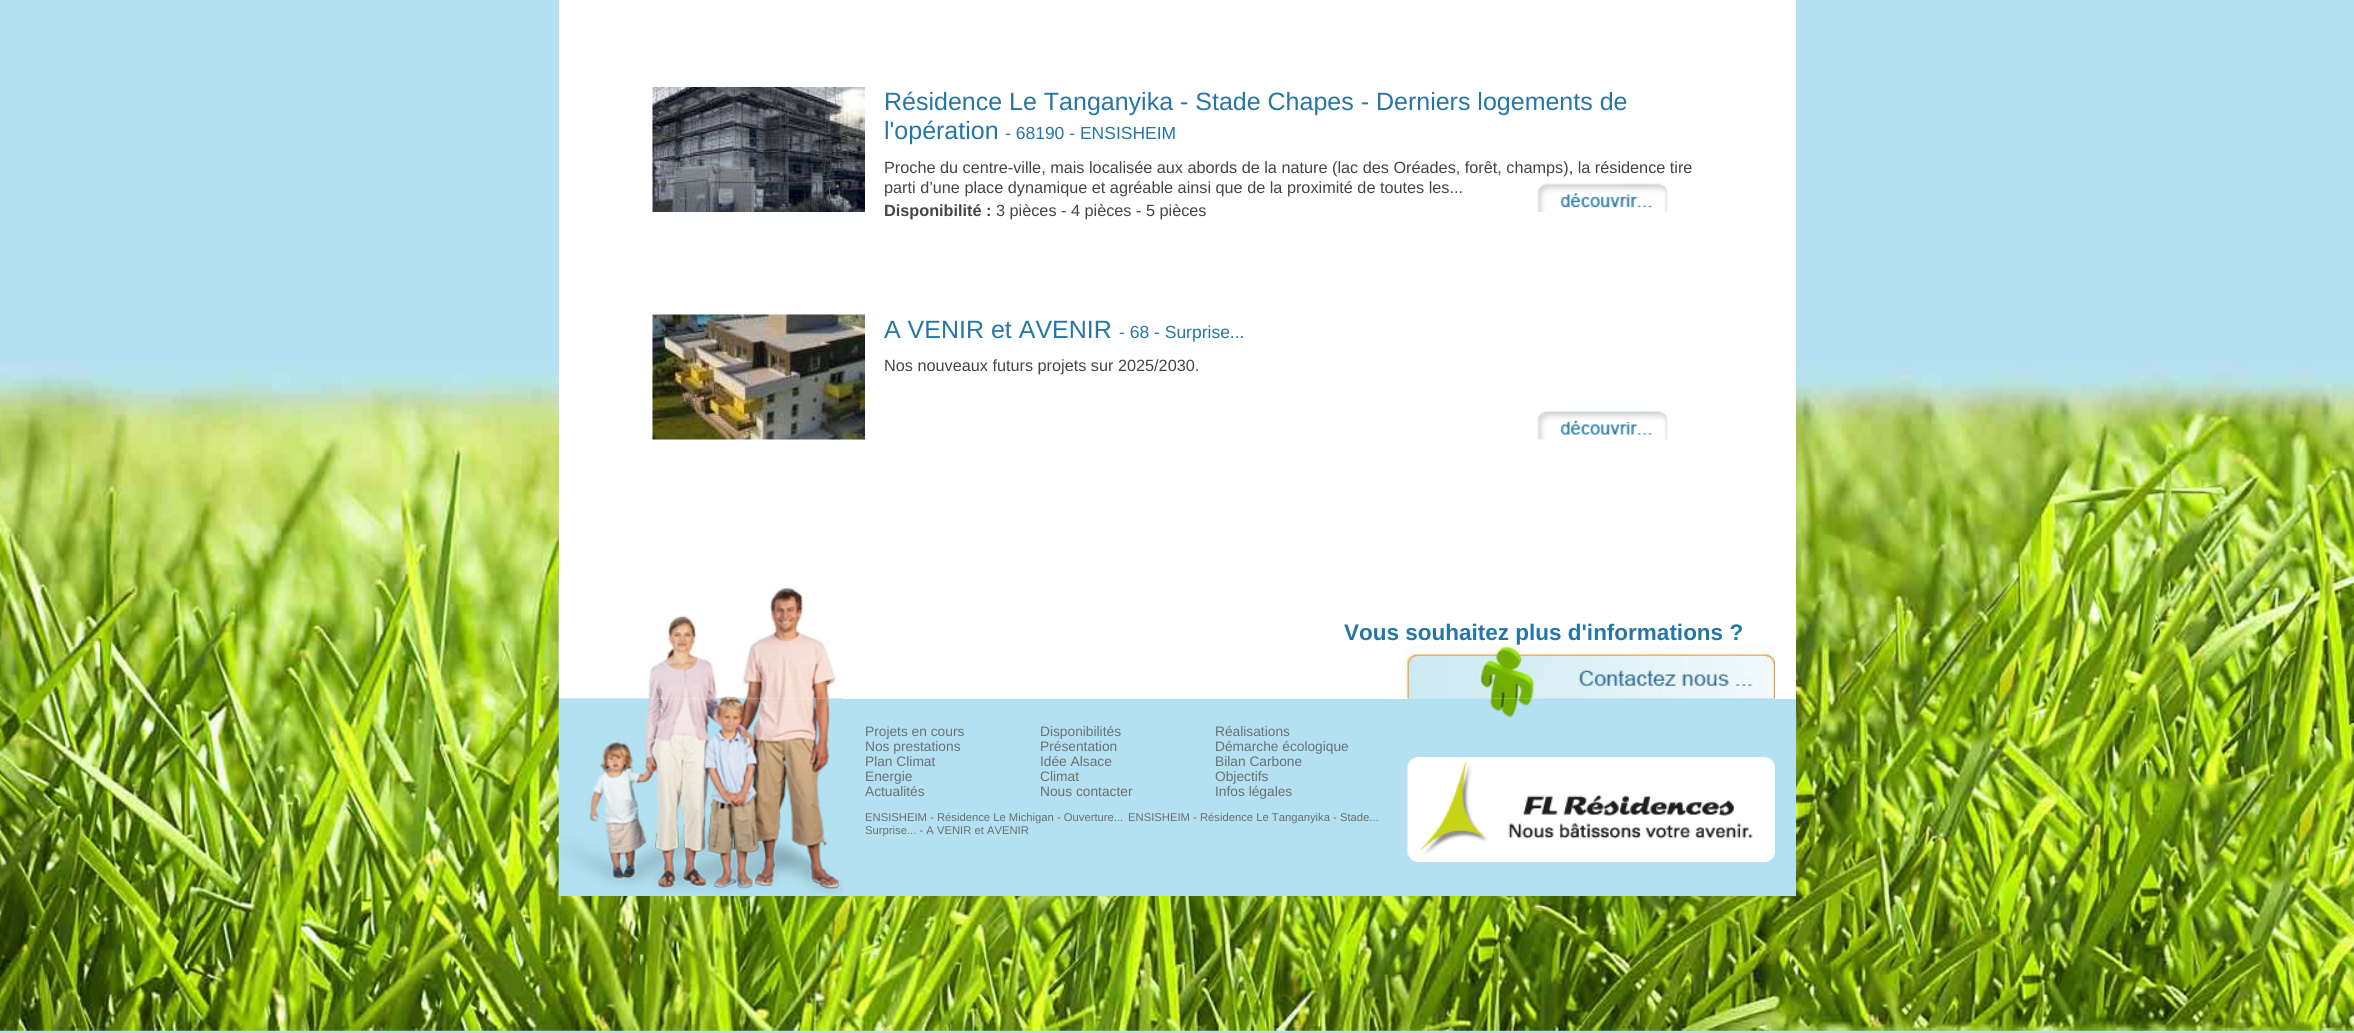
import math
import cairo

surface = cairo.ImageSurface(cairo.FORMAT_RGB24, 2354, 1033)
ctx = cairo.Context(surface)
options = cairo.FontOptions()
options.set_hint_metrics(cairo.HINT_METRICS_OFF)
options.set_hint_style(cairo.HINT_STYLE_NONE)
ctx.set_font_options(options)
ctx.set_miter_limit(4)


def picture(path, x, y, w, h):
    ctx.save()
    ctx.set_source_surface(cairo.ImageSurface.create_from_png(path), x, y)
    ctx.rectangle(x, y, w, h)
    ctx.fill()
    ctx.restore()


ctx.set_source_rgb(0.702, 0.882, 0.945)
ctx.paint()
picture("img1.png", 0, 363, 2354, 668)
ctx.set_source_rgb(1, 1, 1)
ctx.rectangle(559, 0, 1237, 699)
ctx.fill()
picture("img2.png", 1537, 183, 131, 29)
picture("img3.png", 652, 87, 213, 125)
ctx.select_font_face("Liberation Sans")
ctx.set_font_size(25)
ctx.set_source_rgb(0.145, 0.463, 0.647)
ctx.move_to(884, 110)
ctx.show_text("Résidence Le Tanganyika - Stade Chapes - Derniers logements de")
ctx.move_to(884, 139)
ctx.show_text("l'opération")
ctx.set_font_size(17.5)
ctx.move_to(1005, 139)
ctx.show_text("- 68190 - ENSISHEIM")
ctx.set_font_size(16.25)
ctx.set_source_rgb(0.267, 0.267, 0.267)
ctx.move_to(884, 173)
ctx.show_text("Proche du centre-ville, mais localisée aux abords de la nature (lac des Oréades, forêt, champs), la résidence tire")
ctx.move_to(884, 193)
ctx.show_text("parti d’une place dynamique et agréable ainsi que de la proximité de toutes les...")
ctx.select_font_face("Liberation Sans", cairo.FONT_SLANT_NORMAL, cairo.FONT_WEIGHT_BOLD)
ctx.move_to(884, 216)
ctx.show_text("Disponibilité :")
ctx.select_font_face("Liberation Sans")
ctx.move_to(996, 216)
ctx.show_text("3 pièces - 4 pièces - 5 pièces")
picture("img4.png", 1537, 410, 131, 30)
picture("img5.png", 652, 314, 213, 126)
ctx.set_font_size(25)
ctx.set_source_rgb(0.145, 0.463, 0.647)
ctx.move_to(884, 338)
ctx.show_text("A VENIR et AVENIR")
ctx.set_font_size(17.5)
ctx.move_to(1119, 338)
ctx.show_text("- 68 - Surprise...")
ctx.set_font_size(16.25)
ctx.set_source_rgb(0.267, 0.267, 0.267)
ctx.move_to(884, 371)
ctx.show_text("Nos nouveaux futurs projets sur 2025/2030.")
picture("img6.png", 558, 585, 280, 114)
picture("img7.png", 1403, 645, 372, 54)
ctx.select_font_face("Liberation Sans", cairo.FONT_SLANT_NORMAL, cairo.FONT_WEIGHT_BOLD)
ctx.set_font_size(22.5)
ctx.set_source_rgb(0.145, 0.463, 0.647)
ctx.move_to(1344, 640)
ctx.show_text("Vous souhaitez plus d'informations ?")
ctx.set_source_rgb(0.702, 0.882, 0.945)
ctx.rectangle(559, 699, 1237, 197)
ctx.fill()
picture("img8.png", 558, 698, 285, 198)
ctx.select_font_face("Liberation Sans")
ctx.set_font_size(13.75)
ctx.set_source_rgb(0.42, 0.435, 0.439)
ctx.move_to(865, 736)
ctx.show_text("Projets en cours")
ctx.move_to(1040, 736)
ctx.show_text("Disponibilités")
ctx.move_to(1215, 736)
ctx.show_text("Réalisations")
ctx.move_to(865, 751)
ctx.show_text("Nos prestations")
ctx.move_to(1040, 751)
ctx.show_text("Présentation")
ctx.move_to(1215, 751)
ctx.show_text("Démarche écologique")
ctx.move_to(865, 766)
ctx.show_text("Plan Climat")
ctx.move_to(1040, 766)
ctx.show_text("Idée Alsace")
ctx.move_to(1215, 766)
ctx.show_text("Bilan Carbone")
ctx.move_to(865, 781)
ctx.show_text("Energie")
ctx.move_to(1040, 781)
ctx.show_text("Climat")
ctx.move_to(1215, 781)
ctx.show_text("Objectifs")
ctx.move_to(865, 796)
ctx.show_text("Actualités")
ctx.move_to(1040, 796)
ctx.show_text("Nous contacter")
ctx.move_to(1215, 796)
ctx.show_text("Infos légales")
ctx.set_font_size(11.25)
ctx.move_to(865, 821)
ctx.show_text("ENSISHEIM - Résidence Le Michigan - Ouverture...")
ctx.move_to(1128, 821)
ctx.show_text("ENSISHEIM - Résidence Le Tanganyika - Stade...")
ctx.move_to(865, 834)
ctx.show_text("Surprise... - A VENIR et AVENIR")
picture("img9.png", 1407, 698, 368, 21)
picture("img10.png", 1407, 757, 368, 105)
surface.write_to_png("page.png")
